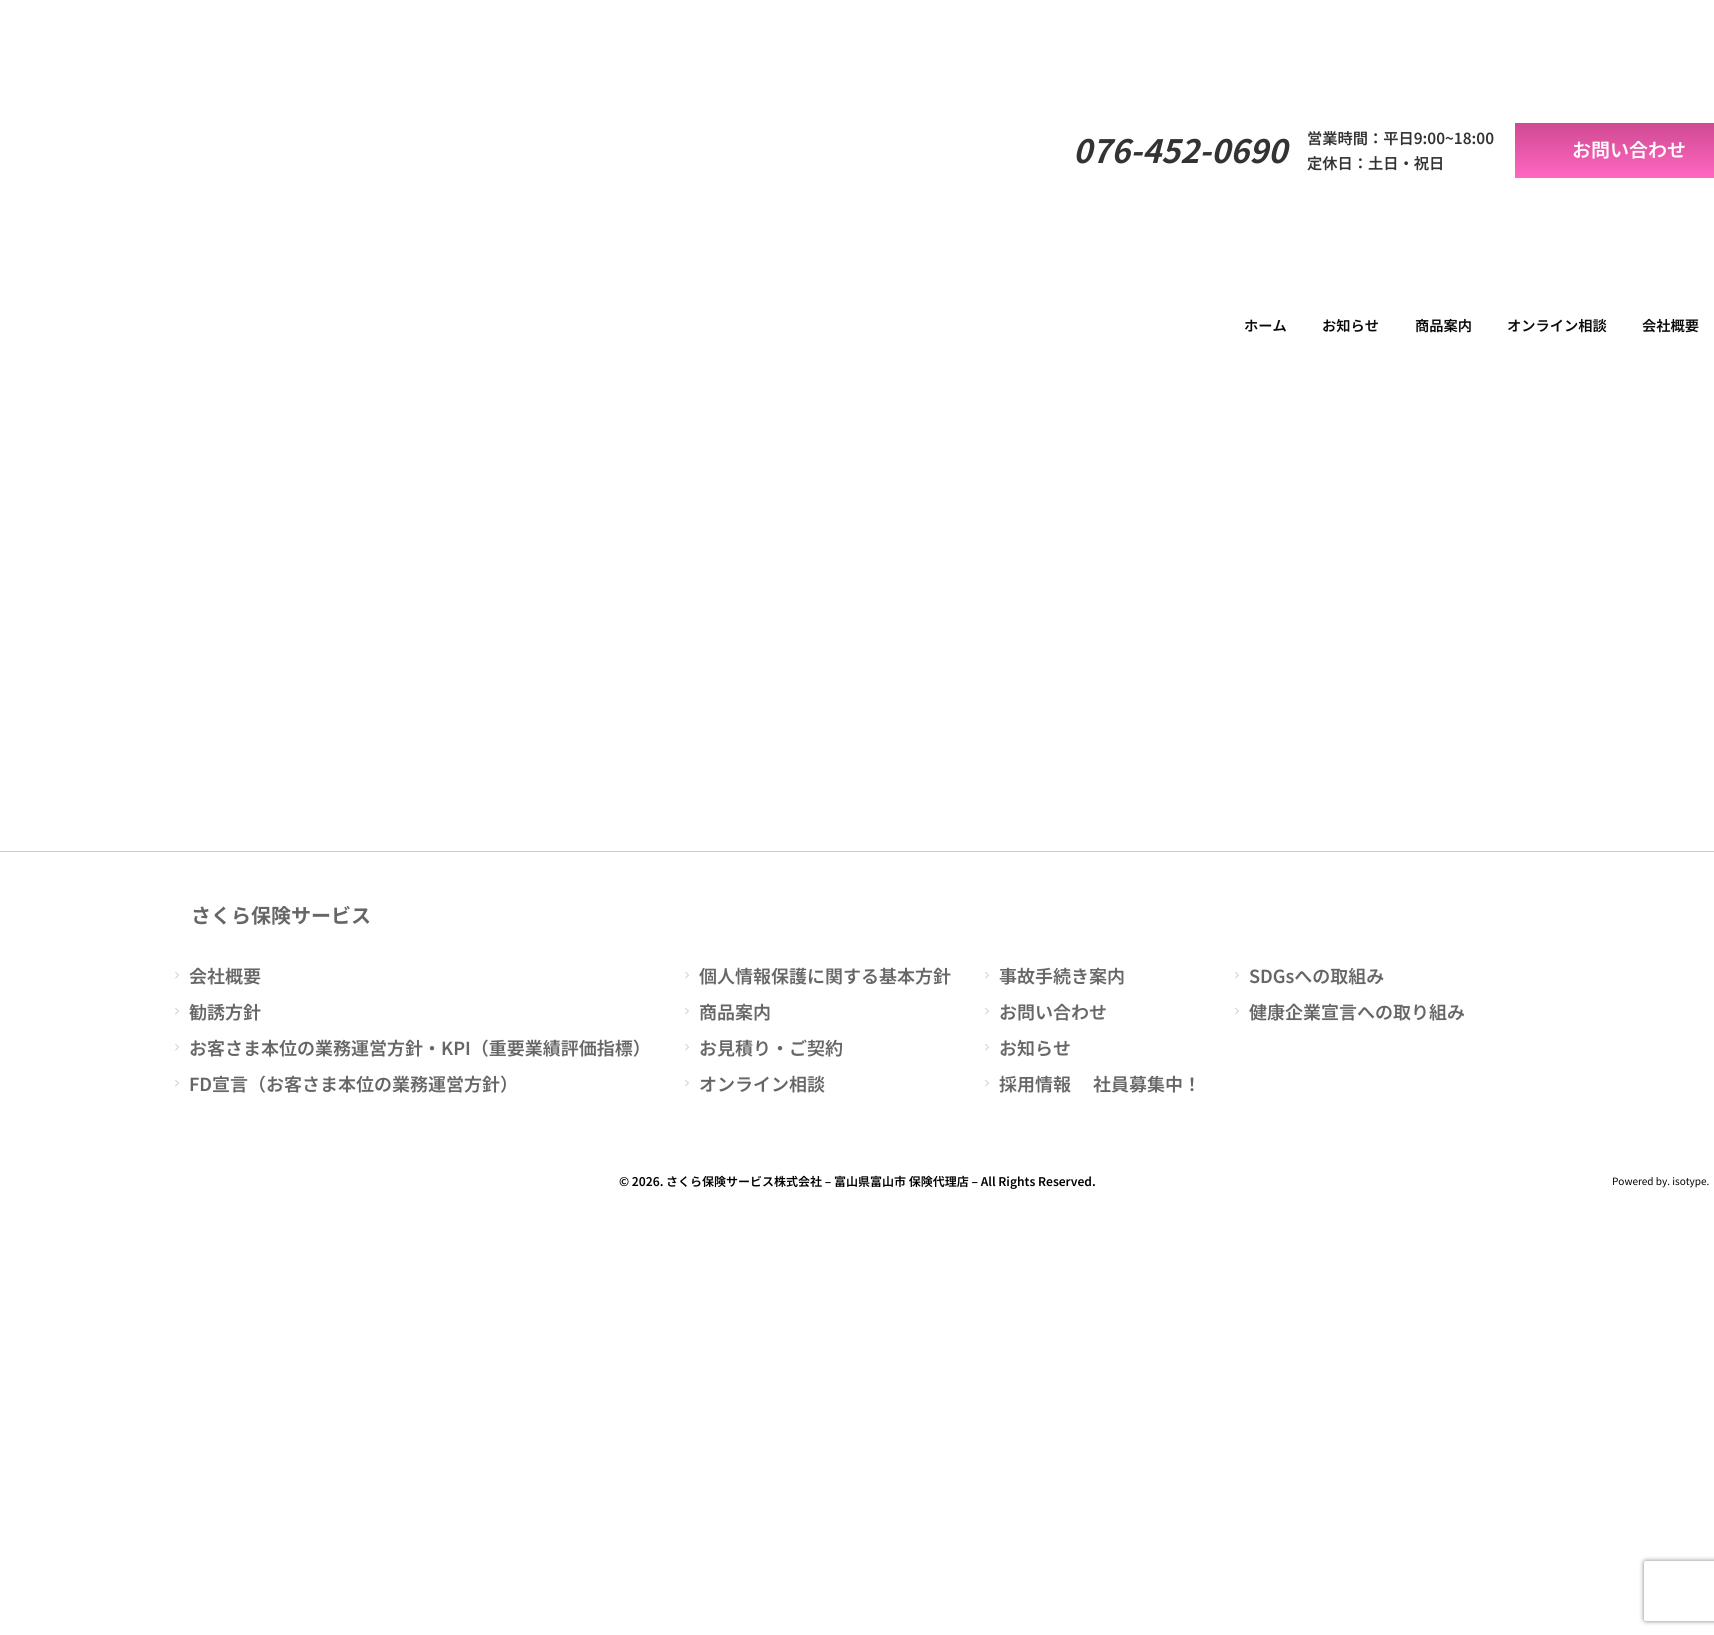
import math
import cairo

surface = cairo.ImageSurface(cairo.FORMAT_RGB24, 1714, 1635)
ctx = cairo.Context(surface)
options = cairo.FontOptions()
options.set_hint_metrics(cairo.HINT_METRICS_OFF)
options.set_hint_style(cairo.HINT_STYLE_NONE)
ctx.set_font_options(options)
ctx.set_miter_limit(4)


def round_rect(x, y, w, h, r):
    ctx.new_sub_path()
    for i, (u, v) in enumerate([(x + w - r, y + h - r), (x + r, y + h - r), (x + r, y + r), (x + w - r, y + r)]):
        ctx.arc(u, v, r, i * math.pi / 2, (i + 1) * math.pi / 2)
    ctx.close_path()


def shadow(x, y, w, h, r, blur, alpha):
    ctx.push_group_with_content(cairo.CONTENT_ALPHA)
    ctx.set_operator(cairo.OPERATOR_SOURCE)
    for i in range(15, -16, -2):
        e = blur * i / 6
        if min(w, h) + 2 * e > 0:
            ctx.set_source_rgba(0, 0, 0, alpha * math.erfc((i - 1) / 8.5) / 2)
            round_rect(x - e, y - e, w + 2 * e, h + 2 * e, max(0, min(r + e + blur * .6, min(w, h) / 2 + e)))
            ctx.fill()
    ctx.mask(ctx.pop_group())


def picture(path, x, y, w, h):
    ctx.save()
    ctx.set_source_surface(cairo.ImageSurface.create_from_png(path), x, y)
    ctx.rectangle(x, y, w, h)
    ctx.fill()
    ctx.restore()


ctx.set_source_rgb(1, 1, 1)
ctx.paint()
ctx.select_font_face("Noto Sans JP", cairo.FONT_SLANT_ITALIC, cairo.FONT_WEIGHT_BOLD)
ctx.set_font_size(32.25)
ctx.set_source_rgb(0.2, 0.2, 0.2)
ctx.move_to(1073, 163)
ctx.show_text("076-452-0690")
ctx.select_font_face("Noto Sans JP SemiBold")
ctx.set_font_size(15.25)
ctx.move_to(1307, 144)
ctx.show_text("営業時間：平日9:00~18:00")
ctx.move_to(1307, 169)
ctx.show_text("定休日：土日・祝日")
gradient = cairo.LinearGradient(1615, 178, 1615, 123)
gradient.add_color_stop_rgba(0, 1, 0.404, 0.761, 1)
gradient.add_color_stop_rgba(1, 0.812, 0.29, 0.569, 1)
ctx.set_source(gradient)
ctx.rectangle(1515, 123, 199, 55)
ctx.fill()
ctx.set_font_size(19)
ctx.set_source_rgb(1, 1, 1)
ctx.move_to(1572, 157)
ctx.show_text("お問い合わせ")
ctx.set_font_size(14.25)
ctx.set_source_rgb(0.039, 0.039, 0.039)
ctx.move_to(1244, 331)
ctx.show_text("ホーム")
ctx.move_to(1322, 331)
ctx.show_text("お知らせ")
ctx.move_to(1415, 331)
ctx.show_text("商品案内")
ctx.move_to(1507, 331)
ctx.show_text("オンライン相談")
ctx.move_to(1642, 331)
ctx.show_text("会社概要")
ctx.set_source_rgb(0.8, 0.8, 0.8)
ctx.rectangle(0, 851, 1714, 1)
ctx.fill()
ctx.select_font_face("Noto Sans JP", cairo.FONT_SLANT_NORMAL, cairo.FONT_WEIGHT_BOLD)
ctx.set_font_size(20)
ctx.set_source_rgb(0.4, 0.4, 0.4)
ctx.move_to(191, 923)
ctx.show_text("さくら保険サービス")
picture("img1.png", 175, 972, 4, 7)
ctx.select_font_face("Noto Sans JP SemiBold")
ctx.set_font_size(18)
ctx.move_to(189, 983)
ctx.show_text("会社概要")
picture("img1.png", 685, 972, 4, 7)
ctx.move_to(699, 983)
ctx.show_text("個人情報保護に関する基本方針")
picture("img1.png", 985, 972, 4, 7)
ctx.move_to(999, 983)
ctx.show_text("事故手続き案内")
picture("img1.png", 1235, 972, 4, 7)
ctx.move_to(1249, 983)
ctx.show_text("SDGsへの取組み")
picture("img1.png", 175, 1008, 4, 7)
ctx.move_to(189, 1019)
ctx.show_text("勧誘方針")
picture("img1.png", 685, 1008, 4, 7)
ctx.move_to(699, 1019)
ctx.show_text("商品案内")
picture("img1.png", 985, 1008, 4, 7)
ctx.move_to(999, 1019)
ctx.show_text("お問い合わせ")
picture("img1.png", 1235, 1008, 4, 7)
ctx.move_to(1249, 1019)
ctx.show_text("健康企業宣言への取り組み")
picture("img1.png", 175, 1044, 4, 7)
ctx.move_to(189, 1055)
ctx.show_text("お客さま本位の業務運営方針・KPI（重要業績評価指標）")
picture("img1.png", 685, 1044, 4, 7)
ctx.move_to(699, 1055)
ctx.show_text("お見積り・ご契約")
picture("img1.png", 985, 1044, 4, 7)
ctx.move_to(999, 1055)
ctx.show_text("お知らせ")
picture("img1.png", 175, 1080, 4, 7)
ctx.move_to(189, 1091)
ctx.show_text("FD宣言（お客さま本位の業務運営方針）")
picture("img1.png", 685, 1080, 4, 7)
ctx.move_to(699, 1091)
ctx.show_text("オンライン相談")
picture("img1.png", 985, 1080, 4, 7)
ctx.move_to(999, 1091)
ctx.show_text("採用情報 　社員募集中！")
ctx.set_font_size(12)
ctx.set_source_rgb(0, 0, 0)
ctx.move_to(619, 1186)
ctx.show_text("© 2026. さくら保険サービス株式会社 – 富山県富山市 保険代理店 – All Rights Reserved.")
ctx.select_font_face("Noto Sans JP")
ctx.set_font_size(10)
ctx.move_to(1612, 1185)
ctx.show_text("Powered by. isotype.")
ctx.save()
ctx.set_fill_rule(cairo.FILL_RULE_EVEN_ODD)
ctx.new_path()
ctx.move_to(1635, 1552)
ctx.line_to(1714, 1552)
ctx.line_to(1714, 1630)
ctx.line_to(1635, 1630)
ctx.close_path()
ctx.move_to(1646, 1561)
ctx.line_to(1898, 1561)
ctx.curve_to(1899, 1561, 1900, 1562, 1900, 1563)
ctx.line_to(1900, 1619)
ctx.curve_to(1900, 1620, 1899, 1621, 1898, 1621)
ctx.line_to(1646, 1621)
ctx.curve_to(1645, 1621, 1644, 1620, 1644, 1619)
ctx.line_to(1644, 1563)
ctx.curve_to(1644, 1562, 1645, 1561, 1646, 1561)
ctx.close_path()
ctx.clip()
ctx.set_source_rgb(0.502, 0.502, 0.502)
shadow(1644, 1561, 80, 60, 2, 2.5, 1)
ctx.restore()
surface.write_to_png("page.png")
